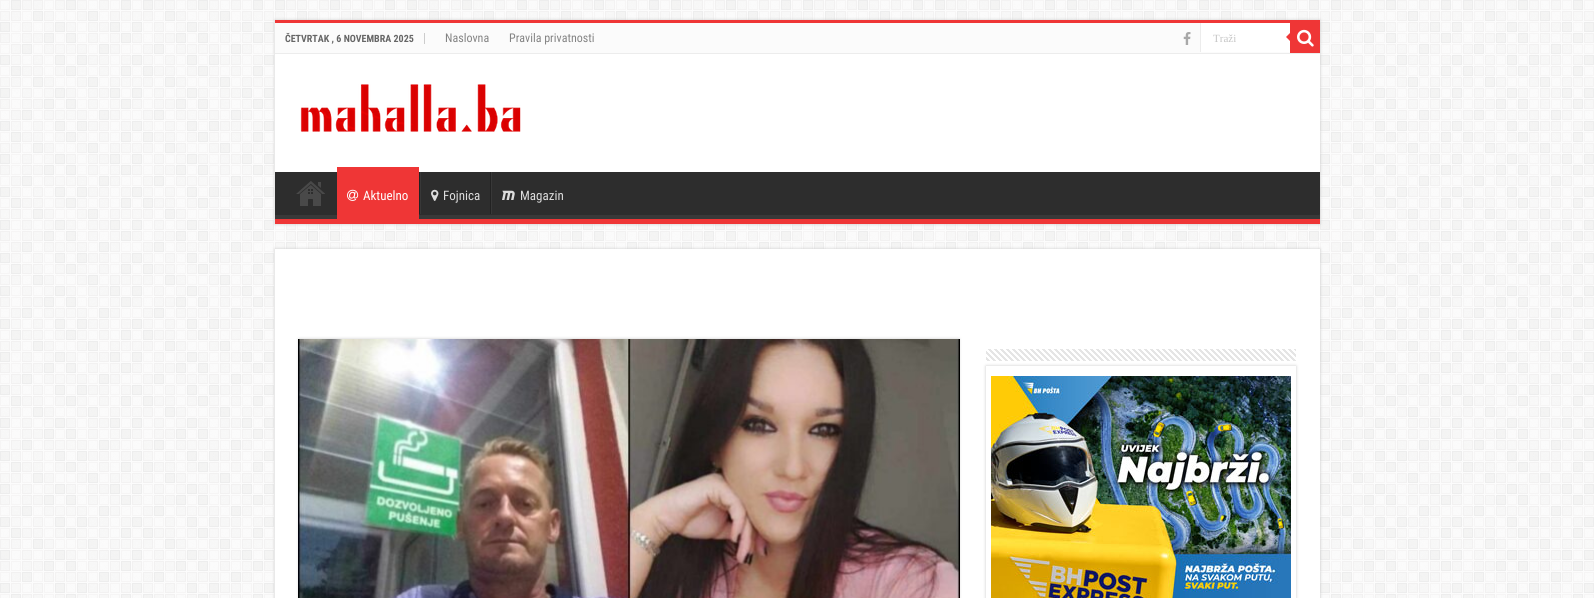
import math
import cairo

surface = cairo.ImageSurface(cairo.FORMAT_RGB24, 1595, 598)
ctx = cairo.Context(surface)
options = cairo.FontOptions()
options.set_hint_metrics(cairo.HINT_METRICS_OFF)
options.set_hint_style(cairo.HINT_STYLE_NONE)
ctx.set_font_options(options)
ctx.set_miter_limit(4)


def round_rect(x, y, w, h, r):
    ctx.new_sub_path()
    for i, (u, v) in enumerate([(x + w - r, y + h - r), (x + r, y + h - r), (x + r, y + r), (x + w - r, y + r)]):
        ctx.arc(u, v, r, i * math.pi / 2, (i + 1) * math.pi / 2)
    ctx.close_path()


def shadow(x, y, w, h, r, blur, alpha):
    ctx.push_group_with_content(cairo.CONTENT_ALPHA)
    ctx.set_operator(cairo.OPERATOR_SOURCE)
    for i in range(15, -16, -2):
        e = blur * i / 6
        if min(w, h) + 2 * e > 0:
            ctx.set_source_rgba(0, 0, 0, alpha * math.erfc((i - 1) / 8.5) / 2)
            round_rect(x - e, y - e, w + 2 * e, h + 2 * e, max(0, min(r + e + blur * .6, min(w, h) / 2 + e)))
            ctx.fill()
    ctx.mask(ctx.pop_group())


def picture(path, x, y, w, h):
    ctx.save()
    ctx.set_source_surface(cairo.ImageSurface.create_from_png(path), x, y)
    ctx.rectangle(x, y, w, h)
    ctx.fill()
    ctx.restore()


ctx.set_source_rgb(1, 1, 1)
ctx.paint()
picture("img1.png", 0, 0, 1594, 598)
ctx.set_source_rgb(0.792, 0.792, 0.792)
shadow(275, 20, 1045, 204, 0, 1.5, 1)
ctx.set_source_rgb(1, 1, 1)
ctx.rectangle(275, 54, 1045, 118)
ctx.fill()
ctx.set_source_rgb(0.937, 0.212, 0.212)
ctx.rectangle(275, 20, 1045, 3)
ctx.fill()
ctx.set_source_rgb(0.984, 0.984, 0.984)
ctx.rectangle(275, 23, 1015, 30)
ctx.fill()
ctx.set_source_rgb(0.925, 0.925, 0.925)
ctx.rectangle(275, 53, 1045, 1)
ctx.fill()
ctx.set_source_rgb(0.8, 0.8, 0.8)
ctx.rectangle(424, 33, 1, 11)
ctx.fill()
ctx.select_font_face("Roboto Condensed", cairo.FONT_SLANT_NORMAL, cairo.FONT_WEIGHT_BOLD)
ctx.set_font_size(10)
ctx.set_source_rgb(0.4, 0.4, 0.4)
ctx.move_to(285, 42)
ctx.show_text("ČETVRTAK , 6 NOVEMBRA 2025")
ctx.select_font_face("Roboto Condensed")
ctx.set_font_size(12)
ctx.set_source_rgb(0.514, 0.514, 0.514)
ctx.move_to(445, 42)
ctx.show_text("Naslovna")
ctx.move_to(509, 42)
ctx.show_text("Pravila privatnosti")
picture("img2.png", 1183, 32, 8, 13)
ctx.set_source_rgb(1, 1, 1)
ctx.rectangle(1201, 23, 89, 29)
ctx.fill()
ctx.set_source_rgb(0.925, 0.925, 0.925)
ctx.rectangle(1200, 23, 1, 29)
ctx.fill()
ctx.select_font_face("Liberation Serif")
ctx.set_font_size(11)
ctx.set_source_rgb(0.773, 0.773, 0.773)
ctx.move_to(1213, 42)
ctx.show_text("Traži")
ctx.set_source_rgb(0.937, 0.212, 0.212)
ctx.rectangle(1290, 23, 30, 30)
ctx.fill()
picture("img3.png", 1297, 29, 17, 18)
ctx.new_path()
ctx.move_to(1290, 33)
ctx.line_to(1290, 41)
ctx.line_to(1286, 37)
ctx.close_path()
ctx.fill()
picture("img4.png", 300, 84, 221, 48)
ctx.set_source_rgb(0.176, 0.176, 0.176)
ctx.rectangle(275, 172, 1045, 43)
ctx.fill()
ctx.save()
ctx.rectangle(275, 172, 1045, 47)
ctx.clip()
ctx.set_source_rgb(0.224, 0.224, 0.224)
ctx.set_fill_rule(cairo.FILL_RULE_EVEN_ODD)
ctx.new_path()
ctx.move_to(176, 73)
ctx.line_to(1419, 73)
ctx.line_to(1419, 318)
ctx.line_to(176, 318)
ctx.close_path()
ctx.move_to(274, 166)
ctx.line_to(1320, 166)
ctx.line_to(1320, 206)
ctx.curve_to(1320, 207, 1321, 215, 1319, 215)
ctx.line_to(274, 215)
ctx.line_to(273, 214)
ctx.line_to(273, 166)
ctx.close_path()
ctx.fill()
ctx.restore()
ctx.set_source_rgb(0.937, 0.212, 0.212)
ctx.rectangle(275, 219, 1045, 5)
ctx.fill()
picture("img5.png", 296, 181, 29, 25)
ctx.rectangle(337, 167, 82, 52)
ctx.fill()
picture("img6.png", 347, 189, 12, 12)
ctx.select_font_face("Roboto Condensed")
ctx.set_font_size(13)
ctx.set_source_rgb(1, 1, 1)
ctx.move_to(363, 200)
ctx.show_text("Aktuelno")
ctx.set_source_rgb(0.133, 0.133, 0.133)
ctx.rectangle(419, 172, 1, 42)
ctx.fill()
ctx.set_source_rgb(0.22, 0.22, 0.22)
ctx.rectangle(420, 172, 1, 42)
ctx.fill()
picture("img7.png", 431, 189, 8, 12)
ctx.set_source_rgb(0.867, 0.867, 0.867)
ctx.move_to(443, 200)
ctx.show_text("Fojnica")
ctx.set_source_rgb(0.133, 0.133, 0.133)
ctx.rectangle(490, 172, 1, 42)
ctx.fill()
ctx.set_source_rgb(0.22, 0.22, 0.22)
ctx.rectangle(491, 172, 1, 42)
ctx.fill()
picture("img8.png", 502, 190, 13, 10)
ctx.set_source_rgb(0.867, 0.867, 0.867)
ctx.move_to(520, 200)
ctx.show_text("Magazin")
ctx.set_source_rgb(0.792, 0.792, 0.792)
shadow(275, 249, 1045, 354, 0, 1.5, 1)
ctx.set_source_rgb(1, 1, 1)
ctx.rectangle(275, 249, 1045, 349)
ctx.fill()
ctx.set_source_rgb(0.792, 0.792, 0.792)
shadow(299, 339, 660, 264, 0, 1.5, 1)
picture("img9.png", 298, 339, 662, 259)
ctx.save()
ctx.set_fill_rule(cairo.FILL_RULE_EVEN_ODD)
ctx.new_path()
ctx.move_to(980, 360)
ctx.line_to(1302, 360)
ctx.line_to(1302, 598)
ctx.line_to(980, 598)
ctx.close_path()
ctx.move_to(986, 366)
ctx.line_to(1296, 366)
ctx.line_to(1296, 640)
ctx.line_to(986, 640)
ctx.close_path()
ctx.clip()
shadow(986, 366, 310, 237, 0, 1.5, 1)
ctx.restore()
picture("img10.png", 986, 349, 310, 12)
picture("img11.png", 991, 376, 300, 222)
surface.write_to_png("page.png")
